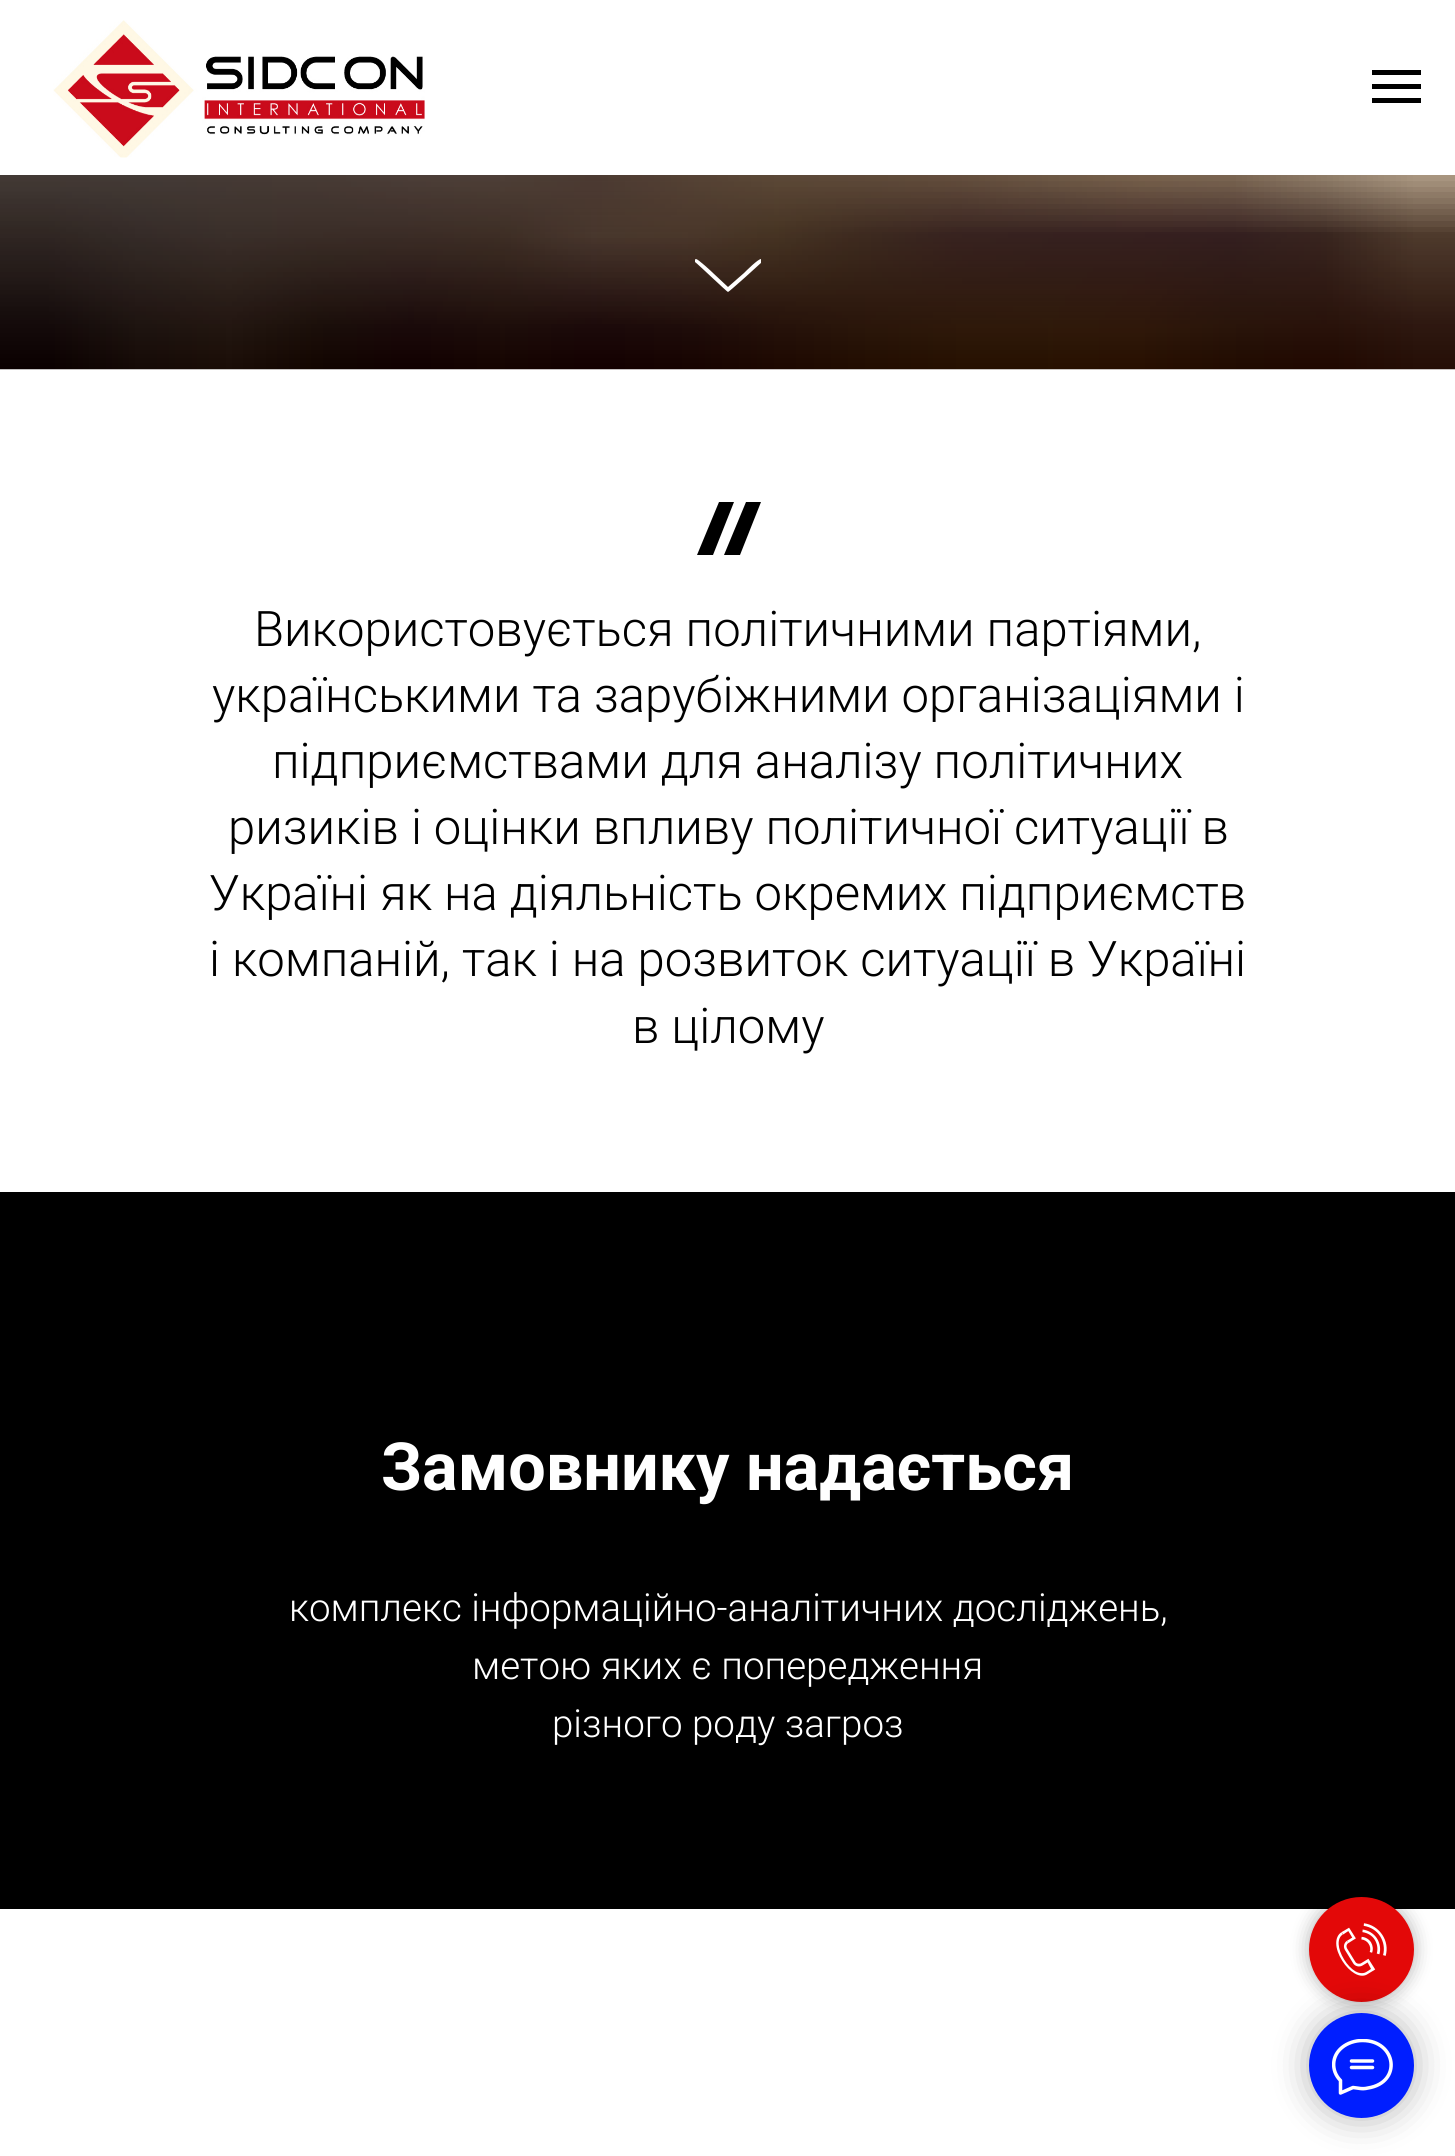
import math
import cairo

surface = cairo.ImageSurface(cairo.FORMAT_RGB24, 1455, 2156)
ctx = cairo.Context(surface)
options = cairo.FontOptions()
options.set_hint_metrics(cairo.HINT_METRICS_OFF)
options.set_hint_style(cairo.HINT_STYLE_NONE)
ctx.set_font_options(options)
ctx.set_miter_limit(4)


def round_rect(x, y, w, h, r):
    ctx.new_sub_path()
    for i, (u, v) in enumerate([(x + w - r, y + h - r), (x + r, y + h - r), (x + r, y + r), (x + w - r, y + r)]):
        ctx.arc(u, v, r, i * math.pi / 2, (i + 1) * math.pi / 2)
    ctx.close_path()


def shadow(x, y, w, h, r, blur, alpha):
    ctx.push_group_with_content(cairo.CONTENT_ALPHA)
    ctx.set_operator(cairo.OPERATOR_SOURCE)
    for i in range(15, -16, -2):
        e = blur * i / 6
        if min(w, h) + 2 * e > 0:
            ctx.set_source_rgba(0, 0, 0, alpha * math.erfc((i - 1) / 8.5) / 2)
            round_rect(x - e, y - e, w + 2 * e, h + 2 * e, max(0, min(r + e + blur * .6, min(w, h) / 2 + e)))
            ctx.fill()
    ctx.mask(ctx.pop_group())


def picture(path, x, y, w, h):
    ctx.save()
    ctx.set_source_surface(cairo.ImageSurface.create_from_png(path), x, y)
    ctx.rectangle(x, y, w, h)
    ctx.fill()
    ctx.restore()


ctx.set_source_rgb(1, 1, 1)
ctx.paint()
picture("img1.png", 53, 20, 372, 138)
ctx.set_source_rgb(0, 0, 0)
ctx.rectangle(1372, 70, 49, 5)
ctx.fill()
ctx.rectangle(1372, 84, 49, 5)
ctx.fill()
ctx.rectangle(1372, 98, 49, 5)
ctx.fill()
picture("img2.png", 0, 175, 1455, 195)
ctx.save()
ctx.rectangle(695, 259, 66, 33)
ctx.clip()
ctx.set_source_rgb(1, 1, 1)
ctx.new_path()
ctx.move_to(728, 292)
ctx.curve_to(727, 292, 699, 265, 695, 262)
ctx.curve_to(694, 261, 695, 259, 696, 259)
ctx.curve_to(698, 259, 711, 271, 713, 273)
ctx.line_to(728, 287)
ctx.line_to(744, 273)
ctx.curve_to(746, 271, 758, 259, 761, 259)
ctx.curve_to(762, 259, 762, 261, 762, 262)
ctx.curve_to(760, 264, 729, 292, 728, 292)
ctx.close_path()
ctx.fill()
ctx.restore()
ctx.set_fill_rule(cairo.FILL_RULE_EVEN_ODD)
ctx.new_path()
ctx.move_to(713, 555)
ctx.line_to(697, 555)
ctx.line_to(719, 502)
ctx.line_to(734, 502)
ctx.close_path()
ctx.fill()
ctx.new_path()
ctx.move_to(740, 555)
ctx.line_to(724, 555)
ctx.line_to(746, 502)
ctx.line_to(761, 502)
ctx.close_path()
ctx.fill()
ctx.select_font_face("Roboto Light")
ctx.set_font_size(49)
ctx.move_to(254, 646)
ctx.show_text("Використовується політичними партіями,")
ctx.move_to(212, 712)
ctx.show_text("українськими та зарубіжними організаціями і")
ctx.move_to(272, 778)
ctx.show_text("підприємствами для аналізу політичних")
ctx.move_to(228, 844)
ctx.show_text("ризиків і оцінки впливу політичної ситуації в")
ctx.move_to(209, 910)
ctx.show_text("Україні як на діяльність окремих підприємств")
ctx.move_to(209, 976)
ctx.show_text("і компаній, так і на розвиток ситуації в Україні")
ctx.move_to(632, 1043)
ctx.show_text("в цілому")
ctx.rectangle(0, 1192, 1455, 717)
ctx.fill()
ctx.select_font_face("Roboto", cairo.FONT_SLANT_NORMAL, cairo.FONT_WEIGHT_BOLD)
ctx.set_font_size(66.5)
ctx.set_source_rgb(1, 1, 1)
ctx.move_to(381, 1490)
ctx.show_text("Замовнику надається")
ctx.select_font_face("Roboto Light")
ctx.set_font_size(38.5)
ctx.move_to(289, 1621)
ctx.show_text("комплекс інформаційно-аналітичних досліджень,")
ctx.move_to(472, 1679)
ctx.show_text("метою яких є попередження")
ctx.move_to(552, 1737)
ctx.show_text("різного роду загроз")
ctx.set_source_rgb(0, 0, 0)
shadow(1309, 1897, 105, 105, 52.5, 9, 0.3)
ctx.set_source_rgb(0.89, 0.035, 0.035)
ctx.arc(1361.5, 1949.5, 52.5, 0, 2 * math.pi)
ctx.fill()
picture("img3.png", 1336, 1923, 51, 53)
ctx.set_source_rgb(0, 0, 0)
shadow(1309, 2013, 105, 105, 52.5, 17.5, 0.3)
ctx.set_source_rgb(0, 0.118, 1)
ctx.arc(1361.5, 2065.5, 52.5, 0, 2 * math.pi)
ctx.fill()
ctx.save()
ctx.set_fill_rule(cairo.FILL_RULE_WINDING)
ctx.rectangle(1332, 2039, 61, 56)
ctx.clip()
ctx.new_path()
ctx.move_to(1351.5, 2061)
ctx.line_to(1372.5, 2061)
ctx.move_to(1351.5, 2067.5)
ctx.line_to(1372.5, 2067.5)
ctx.move_to(1340, 2080)
ctx.curve_to(1331, 2070.5, 1331.5, 2056, 1342, 2047.5)
ctx.curve_to(1347.5, 2043, 1355, 2040.5, 1362.5, 2040.5)
ctx.curve_to(1396.5, 2040.5, 1402.5, 2082.5, 1368, 2088)
ctx.curve_to(1362, 2089.5, 1358.5, 2088, 1353, 2087.5)
ctx.line_to(1340.5, 2093)
ctx.line_to(1340.5, 2080.5)
ctx.close_path()
ctx.set_source_rgb(1, 1, 1)
ctx.set_line_width(3.5)
ctx.set_line_cap(cairo.LINE_CAP_ROUND)
ctx.set_line_join(cairo.LINE_JOIN_ROUND)
ctx.stroke()
ctx.restore()
surface.write_to_png("page.png")
